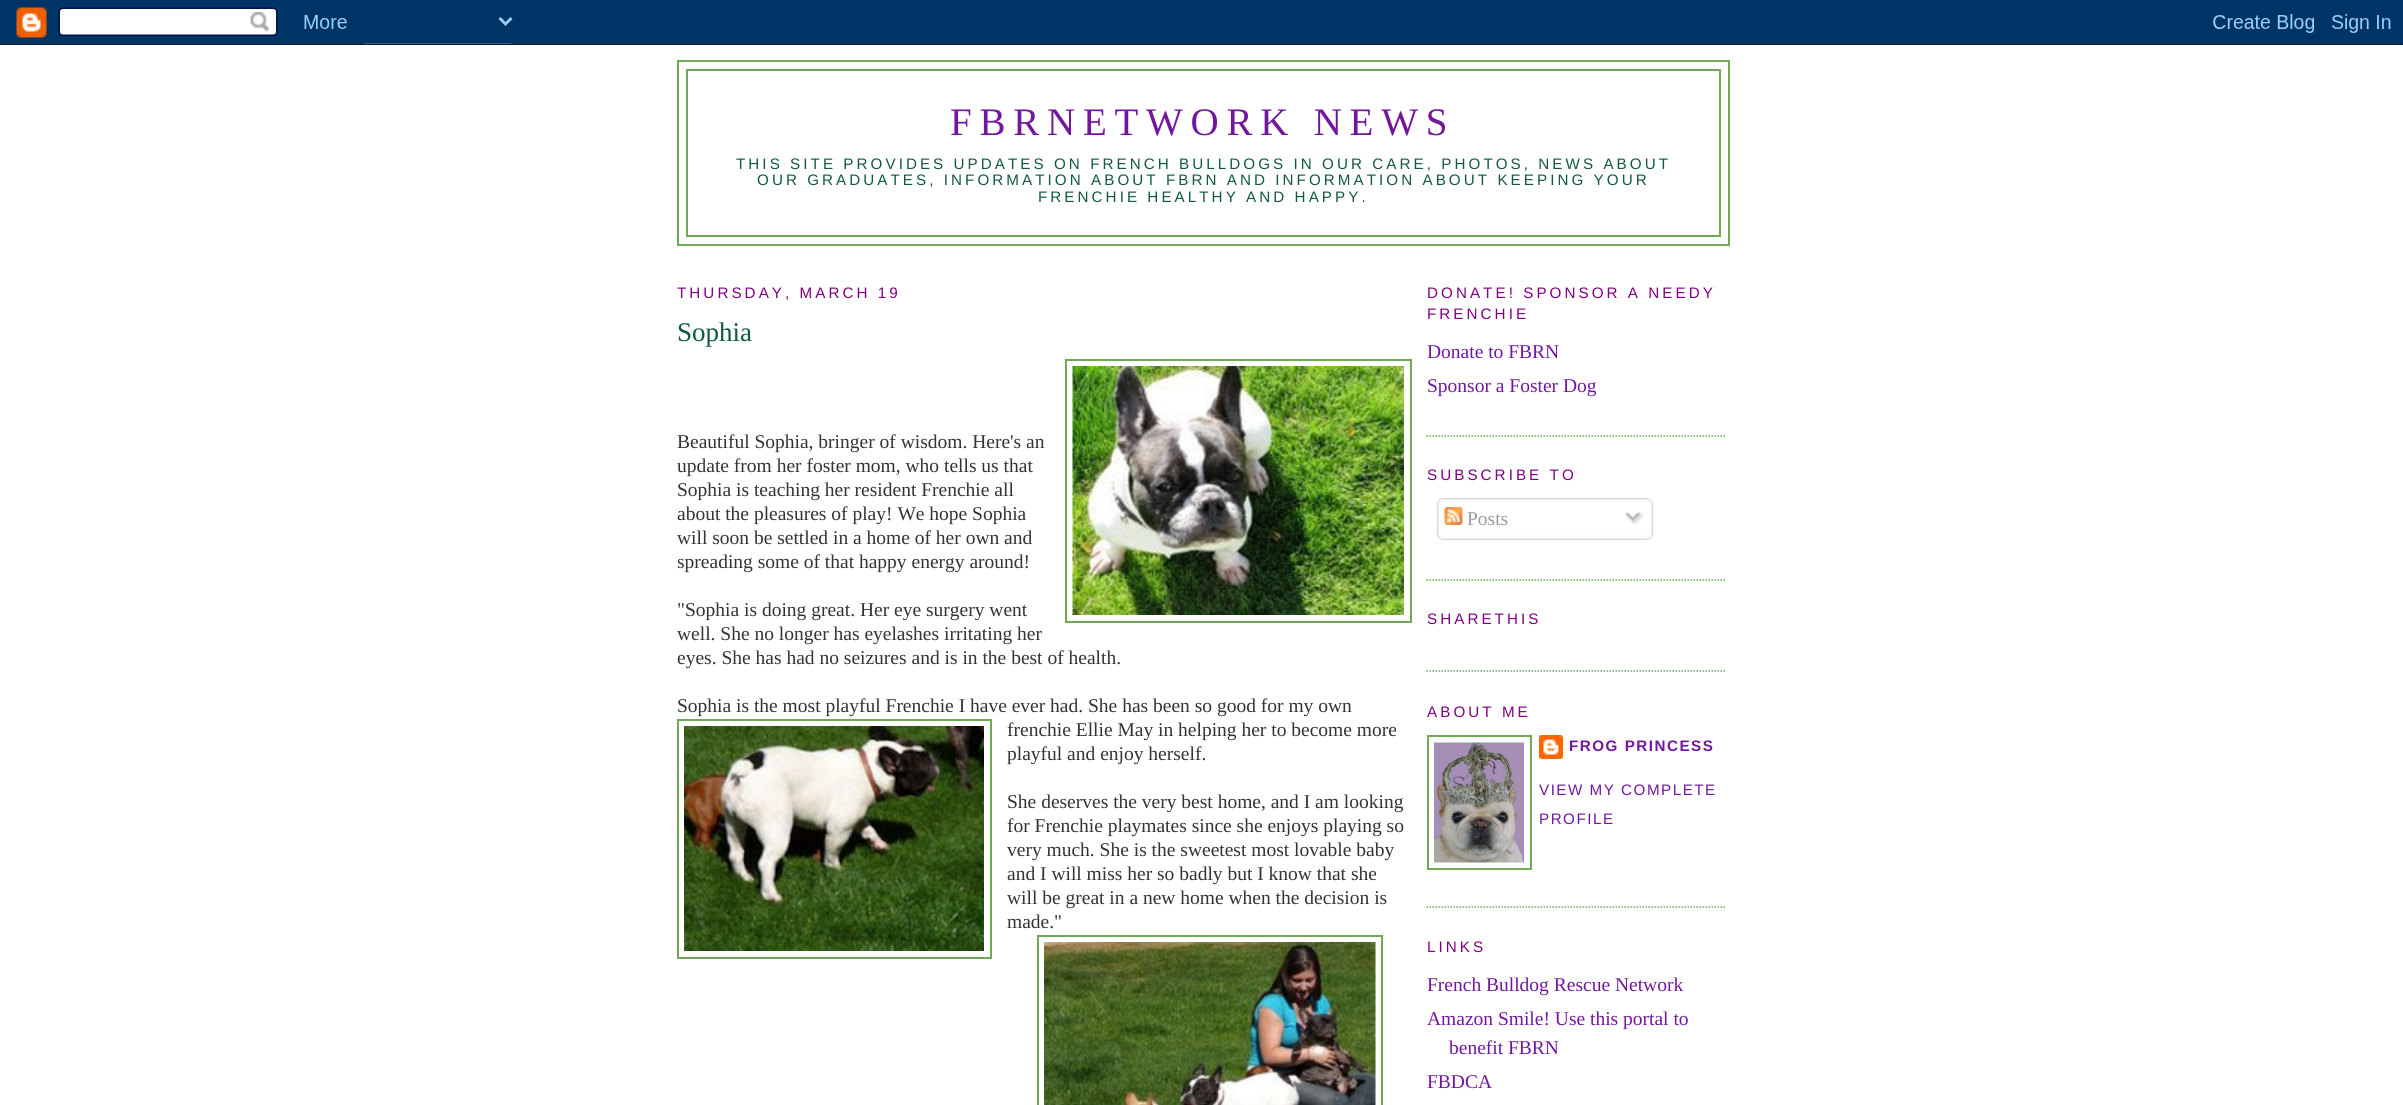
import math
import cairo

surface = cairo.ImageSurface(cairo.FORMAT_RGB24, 2403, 1105)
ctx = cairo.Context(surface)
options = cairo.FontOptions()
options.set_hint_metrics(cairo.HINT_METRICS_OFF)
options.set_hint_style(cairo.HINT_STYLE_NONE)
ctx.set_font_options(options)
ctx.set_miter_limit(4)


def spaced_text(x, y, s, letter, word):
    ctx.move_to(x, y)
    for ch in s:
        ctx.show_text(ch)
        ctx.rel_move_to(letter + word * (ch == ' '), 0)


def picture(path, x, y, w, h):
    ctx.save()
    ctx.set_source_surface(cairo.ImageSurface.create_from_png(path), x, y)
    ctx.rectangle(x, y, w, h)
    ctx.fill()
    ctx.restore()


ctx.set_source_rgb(1, 1, 1)
ctx.paint()
picture("img1.png", 0, 0, 2403, 45)
ctx.rectangle(678, 61, 1051, 184)
ctx.set_source_rgb(0.439, 0.667, 0.333)
ctx.stroke()
ctx.rectangle(687, 70, 1033, 166)
ctx.stroke()
ctx.select_font_face("Liberation Serif")
ctx.set_font_size(39)
ctx.set_source_rgb(0.447, 0.09, 0.616)
spaced_text(950, 135, "FBRNETWORK NEWS", 7.75, 0)
ctx.select_font_face("Liberation Sans")
ctx.set_font_size(15.2)
ctx.set_source_rgb(0.067, 0.349, 0.235)
spaced_text(736, 169, "THIS SITE PROVIDES UPDATES ON FRENCH BULLDOGS IN OUR CARE, PHOTOS, NEWS ABOUT", 3.05, 0)
spaced_text(757, 185, "OUR GRADUATES, INFORMATION ABOUT FBRN AND INFORMATION ABOUT KEEPING YOUR", 3.05, 0)
spaced_text(1038, 202, "FRENCHIE HEALTHY AND HAPPY.", 3.05, 0)
ctx.set_source_rgb(0.502, 0, 0.502)
spaced_text(677, 298, "THURSDAY, MARCH 19", 3.05, 0)
ctx.select_font_face("Liberation Serif")
ctx.set_font_size(27)
ctx.set_source_rgb(0.067, 0.349, 0.235)
ctx.move_to(677, 341)
ctx.show_text("Sophia")
ctx.set_font_size(19.5)
ctx.set_source_rgb(0.2, 0.2, 0.2)
ctx.move_to(677, 448)
ctx.show_text("Beautiful Sophia, bringer of wisdom. Here's an")
ctx.rectangle(1066, 360, 345, 262)
ctx.set_source_rgb(0.439, 0.667, 0.333)
ctx.stroke()
picture("img2.png", 1072, 366, 332, 249)
ctx.set_source_rgb(0.2, 0.2, 0.2)
ctx.move_to(677, 472)
ctx.show_text("update from her foster mom, who tells us that")
ctx.move_to(677, 496)
ctx.show_text("Sophia is teaching her resident Frenchie all")
ctx.move_to(677, 520)
ctx.show_text("about the pleasures of play! We hope Sophia")
ctx.move_to(677, 544)
ctx.show_text("will soon be settled in a home of her own and")
ctx.move_to(677, 568)
ctx.show_text("spreading some of that happy energy around!")
ctx.move_to(677, 616)
ctx.show_text("\"Sophia is doing great. Her eye surgery went")
ctx.move_to(677, 640)
ctx.show_text("well. She no longer has eyelashes irritating her")
ctx.move_to(677, 664)
ctx.show_text("eyes. She has had no seizures and is in the best of health.")
ctx.move_to(677, 712)
ctx.show_text("Sophia is the most playful Frenchie I have ever had. She has been so good for my own")
ctx.rectangle(678, 720, 313, 238)
ctx.set_source_rgb(0.439, 0.667, 0.333)
ctx.stroke()
picture("img3.png", 684, 726, 300, 225)
ctx.set_source_rgb(0.2, 0.2, 0.2)
ctx.move_to(1007, 736)
ctx.show_text("frenchie Ellie May in helping her to become more")
ctx.move_to(1007, 760)
ctx.show_text("playful and enjoy herself.")
ctx.move_to(1007, 808)
ctx.show_text("She deserves the very best home, and I am looking")
ctx.move_to(1007, 832)
ctx.show_text("for Frenchie playmates since she enjoys playing so")
ctx.move_to(1007, 856)
ctx.show_text("very much. She is the sweetest most lovable baby")
ctx.move_to(1007, 880)
ctx.show_text("and I will miss her so badly but I know that she")
ctx.move_to(1007, 904)
ctx.show_text("will be great in a new home when the decision is")
ctx.move_to(1007, 928)
ctx.show_text("made.\"")
ctx.rectangle(1038, 936, 344, 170)
ctx.set_source_rgb(0.439, 0.667, 0.333)
ctx.stroke()
picture("img4.png", 1044, 942, 332, 163)
ctx.new_path()
ctx.move_to(1426.5, 436)
ctx.line_to(1726.5, 436)
ctx.set_line_width(1.5)
ctx.set_dash([1.5, 1.5])
ctx.stroke()
ctx.select_font_face("Liberation Sans")
ctx.set_font_size(15.2)
ctx.set_source_rgb(0.502, 0, 0.502)
spaced_text(1427, 298, "DONATE! SPONSOR A NEEDY", 3.05, 0)
spaced_text(1427, 319, "FRENCHIE", 3.05, 0)
ctx.select_font_face("Liberation Serif")
ctx.set_font_size(19.5)
ctx.set_source_rgb(0.447, 0.09, 0.616)
ctx.move_to(1427, 358)
ctx.show_text("Donate to FBRN")
ctx.move_to(1427, 392)
ctx.show_text("Sponsor a Foster Dog")
ctx.new_path()
ctx.move_to(1426.5, 580)
ctx.line_to(1726.5, 580)
ctx.set_source_rgb(0.439, 0.667, 0.333)
ctx.stroke()
ctx.select_font_face("Liberation Sans")
ctx.set_font_size(15.2)
ctx.set_source_rgb(0.502, 0, 0.502)
spaced_text(1427, 480, "SUBSCRIBE TO", 3.05, 0)
picture("img5.png", 1437, 498, 216, 38)
picture("img6.png", 1444, 507, 19, 18)
ctx.select_font_face("Liberation Serif")
ctx.set_font_size(19.5)
ctx.set_source_rgb(0.6, 0.6, 0.6)
ctx.move_to(1467, 525)
ctx.show_text("Posts")
picture("img7.png", 1624, 511, 20, 14)
picture("img8.png", 1437, 535, 216, 5)
ctx.new_path()
ctx.move_to(1426.5, 671)
ctx.line_to(1726.5, 671)
ctx.set_source_rgb(0.439, 0.667, 0.333)
ctx.stroke()
ctx.select_font_face("Liberation Sans")
ctx.set_font_size(15.2)
ctx.set_source_rgb(0.502, 0, 0.502)
spaced_text(1427, 624, "SHARETHIS", 3.05, 0)
ctx.new_path()
ctx.move_to(1426.5, 907)
ctx.line_to(1726.5, 907)
ctx.set_source_rgb(0.439, 0.667, 0.333)
ctx.stroke()
ctx.set_source_rgb(0.502, 0, 0.502)
spaced_text(1427, 717, "ABOUT ME", 3.05, 0)
ctx.rectangle(1428, 736, 103, 133)
ctx.set_source_rgb(0.439, 0.667, 0.333)
ctx.set_line_width(2)
ctx.set_dash([])
ctx.stroke()
picture("img9.png", 1434, 742, 90, 121)
picture("img10.png", 1539, 735, 24, 24)
ctx.select_font_face("Liberation Sans", cairo.FONT_SLANT_NORMAL, cairo.FONT_WEIGHT_BOLD)
ctx.set_source_rgb(0.447, 0.09, 0.616)
spaced_text(1569, 751, "FROG PRINCESS", 1.5, 0)
ctx.select_font_face("Liberation Sans")
spaced_text(1539, 795, "VIEW MY COMPLETE", 1.5, 0)
spaced_text(1539, 824, "PROFILE", 1.5, 0)
ctx.set_source_rgb(0.502, 0, 0.502)
spaced_text(1427, 952, "LINKS", 3.05, 0)
ctx.select_font_face("Liberation Serif")
ctx.set_font_size(19.5)
ctx.set_source_rgb(0.447, 0.09, 0.616)
ctx.move_to(1427, 991)
ctx.show_text("French Bulldog Rescue Network")
ctx.move_to(1427, 1025)
ctx.show_text("Amazon Smile! Use this portal to")
ctx.move_to(1449, 1054)
ctx.show_text("benefit FBRN")
ctx.move_to(1427, 1088)
ctx.show_text("FBDCA")
surface.write_to_png("page.png")
